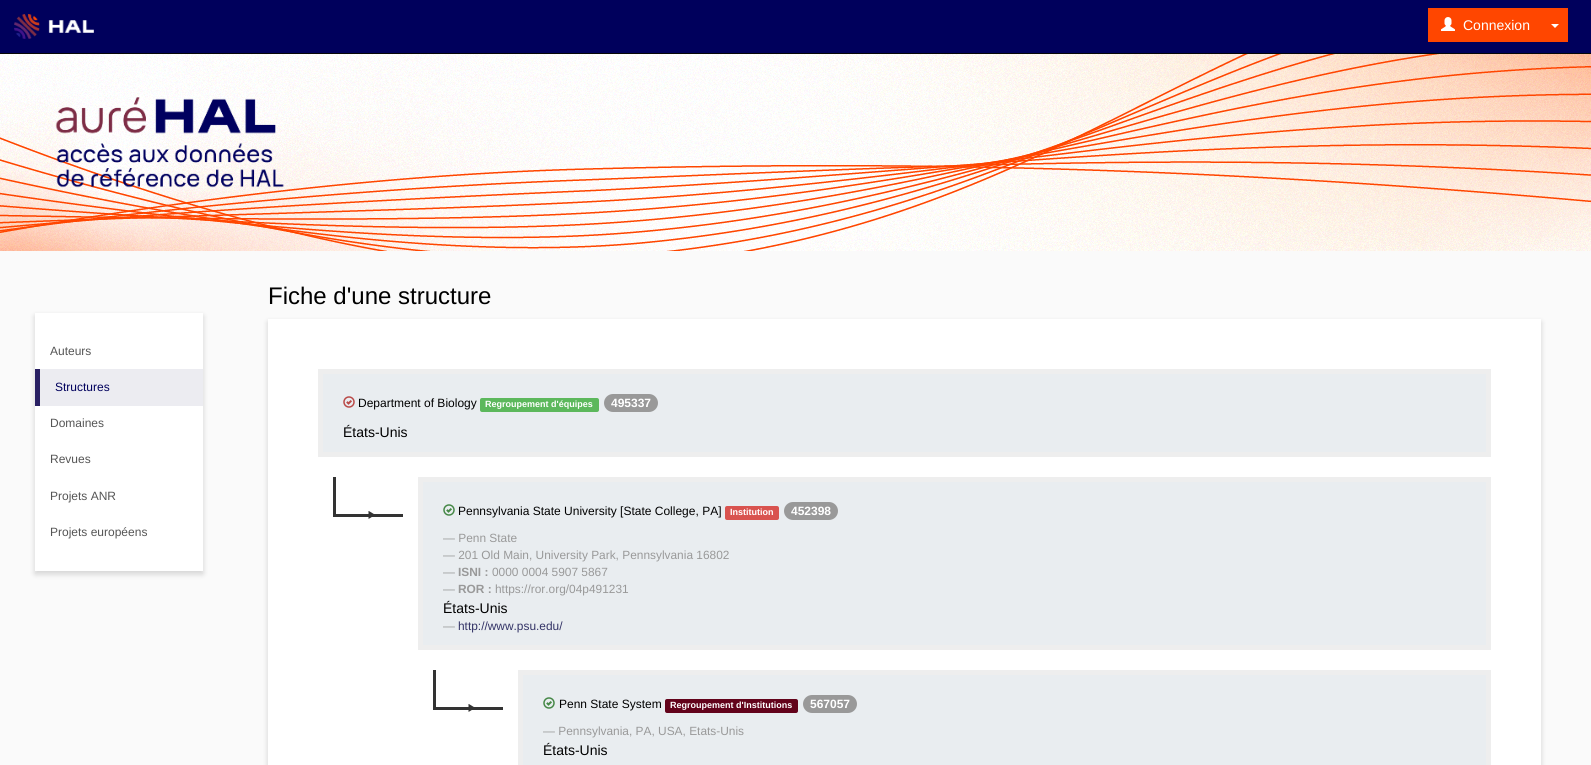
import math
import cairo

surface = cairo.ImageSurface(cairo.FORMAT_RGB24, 1591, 765)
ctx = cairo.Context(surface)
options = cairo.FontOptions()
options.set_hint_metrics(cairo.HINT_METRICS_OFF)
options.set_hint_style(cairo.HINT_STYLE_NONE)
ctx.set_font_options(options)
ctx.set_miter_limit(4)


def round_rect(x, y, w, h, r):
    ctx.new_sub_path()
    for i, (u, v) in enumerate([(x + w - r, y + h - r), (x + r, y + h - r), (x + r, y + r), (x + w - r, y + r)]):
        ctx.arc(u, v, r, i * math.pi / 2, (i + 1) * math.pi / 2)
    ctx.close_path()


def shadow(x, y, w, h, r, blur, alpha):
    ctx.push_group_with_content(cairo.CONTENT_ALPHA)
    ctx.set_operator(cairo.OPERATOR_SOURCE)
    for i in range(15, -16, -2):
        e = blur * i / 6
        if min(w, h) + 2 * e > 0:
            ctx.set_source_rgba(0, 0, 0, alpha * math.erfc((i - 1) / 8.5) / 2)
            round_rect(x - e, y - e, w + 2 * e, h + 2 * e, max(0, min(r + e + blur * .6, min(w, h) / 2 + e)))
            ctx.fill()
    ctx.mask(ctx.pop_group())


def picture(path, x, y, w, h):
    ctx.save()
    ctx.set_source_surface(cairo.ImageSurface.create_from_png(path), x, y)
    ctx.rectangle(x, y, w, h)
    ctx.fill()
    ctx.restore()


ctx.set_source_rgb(0.98, 0.98, 0.98)
ctx.paint()
picture("img1.png", 0, 54, 1591, 197)
ctx.set_source_rgb(0.031, 0.031, 0.031)
ctx.rectangle(0, 53, 1591, 1)
ctx.fill()
ctx.set_source_rgb(0, 0, 0.361)
ctx.rectangle(0, 0, 1591, 53)
ctx.fill()
picture("img2.png", 14, 14, 80, 25)
ctx.set_source_rgb(1, 0.275, 0)
ctx.rectangle(1428, 8, 140, 34)
ctx.fill()
picture("img3.png", 1441, 17, 14, 14)
ctx.select_font_face("Liberation Sans")
ctx.set_font_size(14)
ctx.set_source_rgb(1, 1, 1)
ctx.move_to(1463, 30)
ctx.show_text("Connexion")
ctx.new_path()
ctx.move_to(1551, 24)
ctx.line_to(1559, 24)
ctx.line_to(1555, 28)
ctx.close_path()
ctx.fill()
picture("img4.png", 55, 97, 229, 91)
ctx.set_source_rgb(0, 0, 0)
shadow(35, 316, 168, 258, 0, 3, 0.16)
ctx.set_source_rgb(1, 1, 1)
ctx.rectangle(35, 313, 168, 258)
ctx.fill()
ctx.set_font_size(12)
ctx.set_source_rgb(0.333, 0.333, 0.333)
ctx.move_to(50, 355)
ctx.show_text("Auteurs")
ctx.set_source_rgb(0.925, 0.922, 0.945)
ctx.rectangle(40, 369, 163, 37)
ctx.fill()
ctx.set_source_rgb(0.161, 0.125, 0.388)
ctx.rectangle(35, 369, 5, 37)
ctx.fill()
ctx.set_source_rgb(0, 0, 0.361)
ctx.move_to(55, 391)
ctx.show_text("Structures")
ctx.set_source_rgb(0.333, 0.333, 0.333)
ctx.move_to(50, 427)
ctx.show_text("Domaines")
ctx.move_to(50, 463)
ctx.show_text("Revues")
ctx.move_to(50, 500)
ctx.show_text("Projets ANR")
ctx.move_to(50, 536)
ctx.show_text("Projets européens")
ctx.set_font_size(24)
ctx.set_source_rgb(0, 0, 0)
ctx.move_to(268, 304)
ctx.show_text("Fiche d'une structure")
ctx.set_source_rgb(0, 0, 0)
shadow(268, 322, 1273, 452, 0, 3, 0.16)
ctx.set_source_rgb(1, 1, 1)
ctx.rectangle(268, 319, 1273, 446)
ctx.fill()
ctx.set_source_rgb(0.914, 0.929, 0.941)
ctx.rectangle(320.5, 371.5, 1168, 83)
ctx.fill_preserve()
ctx.set_source_rgb(0.933, 0.933, 0.933)
ctx.set_line_width(5)
ctx.stroke()
picture("img5.png", 343, 396, 12, 12)
ctx.set_font_size(12)
ctx.set_source_rgb(0, 0, 0)
ctx.move_to(358, 407)
ctx.show_text("Department of Biology")
ctx.set_source_rgb(0.361, 0.722, 0.361)
round_rect(480, 398, 119, 14, 2)
ctx.fill()
ctx.select_font_face("Liberation Sans", cairo.FONT_SLANT_NORMAL, cairo.FONT_WEIGHT_BOLD)
ctx.set_font_size(9)
ctx.set_source_rgb(1, 1, 1)
ctx.move_to(485, 407)
ctx.show_text("Regroupement d'équipes")
ctx.set_source_rgb(0.6, 0.6, 0.6)
round_rect(604, 394, 54, 18, 9)
ctx.fill()
ctx.set_font_size(12)
ctx.set_source_rgb(1, 1, 1)
ctx.move_to(611, 407)
ctx.show_text("495337")
ctx.select_font_face("Liberation Sans")
ctx.set_font_size(14)
ctx.set_source_rgb(0, 0, 0)
ctx.move_to(343, 437)
ctx.show_text("États-Unis")
ctx.set_source_rgb(0.2, 0.2, 0.2)
ctx.rectangle(333, 477, 3, 40)
ctx.fill()
ctx.rectangle(333, 514, 70, 3)
ctx.fill()
picture("img6.png", 368, 511, 6, 8)
ctx.set_source_rgb(0.914, 0.929, 0.941)
ctx.rectangle(420.5, 479.5, 1068, 168)
ctx.fill_preserve()
ctx.set_source_rgb(0.933, 0.933, 0.933)
ctx.stroke()
picture("img7.png", 443, 504, 12, 12)
ctx.set_font_size(12)
ctx.set_source_rgb(0, 0, 0)
ctx.move_to(458, 515)
ctx.show_text("Pennsylvania State University [State College, PA]")
ctx.set_source_rgb(0.851, 0.325, 0.31)
round_rect(725, 506, 54, 14, 2)
ctx.fill()
ctx.select_font_face("Liberation Sans", cairo.FONT_SLANT_NORMAL, cairo.FONT_WEIGHT_BOLD)
ctx.set_font_size(9)
ctx.set_source_rgb(1, 1, 1)
ctx.move_to(730, 515)
ctx.show_text("Institution")
ctx.set_source_rgb(0.6, 0.6, 0.6)
round_rect(784, 502, 54, 18, 9)
ctx.fill()
ctx.set_font_size(12)
ctx.set_source_rgb(1, 1, 1)
ctx.move_to(791, 515)
ctx.show_text("452398")
ctx.select_font_face("Liberation Sans")
ctx.set_font_size(11.9)
ctx.set_source_rgb(0.6, 0.6, 0.6)
ctx.move_to(443, 542)
ctx.show_text("— Penn State")
ctx.move_to(443, 559)
ctx.show_text("— 201 Old Main, University Park, Pennsylvania 16802")
ctx.move_to(443, 576)
ctx.show_text("—")
ctx.select_font_face("Liberation Sans", cairo.FONT_SLANT_NORMAL, cairo.FONT_WEIGHT_BOLD)
ctx.move_to(458, 576)
ctx.show_text("ISNI :")
ctx.select_font_face("Liberation Sans")
ctx.move_to(492, 576)
ctx.show_text("0000 0004 5907 5867")
ctx.move_to(443, 593)
ctx.show_text("—")
ctx.select_font_face("Liberation Sans", cairo.FONT_SLANT_NORMAL, cairo.FONT_WEIGHT_BOLD)
ctx.move_to(458, 593)
ctx.show_text("ROR :")
ctx.select_font_face("Liberation Sans")
ctx.move_to(495, 593)
ctx.show_text("https://ror.org/04p491231")
ctx.set_font_size(14)
ctx.set_source_rgb(0, 0, 0)
ctx.move_to(443, 613)
ctx.show_text("États-Unis")
ctx.set_font_size(11.9)
ctx.set_source_rgb(0.6, 0.6, 0.6)
ctx.move_to(443, 630)
ctx.show_text("—")
ctx.set_source_rgb(0.2, 0.2, 0.4)
ctx.move_to(458, 630)
ctx.show_text("http://www.psu.edu/")
ctx.set_source_rgb(0.2, 0.2, 0.2)
ctx.rectangle(433, 670, 3, 40)
ctx.fill()
ctx.rectangle(433, 707, 70, 3)
ctx.fill()
picture("img6.png", 468, 704, 6, 8)
ctx.set_source_rgb(0.914, 0.929, 0.941)
ctx.rectangle(520.5, 672.5, 968, 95)
ctx.fill_preserve()
ctx.set_source_rgb(0.933, 0.933, 0.933)
ctx.stroke()
picture("img7.png", 543, 697, 12, 12)
ctx.set_font_size(12)
ctx.set_source_rgb(0, 0, 0)
ctx.move_to(559, 708)
ctx.show_text("Penn State System")
ctx.set_source_rgb(0.388, 0.012, 0.106)
round_rect(665, 699, 133, 14, 2)
ctx.fill()
ctx.select_font_face("Liberation Sans", cairo.FONT_SLANT_NORMAL, cairo.FONT_WEIGHT_BOLD)
ctx.set_font_size(9)
ctx.set_source_rgb(1, 1, 1)
ctx.move_to(670, 708)
ctx.show_text("Regroupement d'Institutions")
ctx.set_source_rgb(0.6, 0.6, 0.6)
round_rect(803, 695, 54, 18, 9)
ctx.fill()
ctx.set_font_size(12)
ctx.set_source_rgb(1, 1, 1)
ctx.move_to(810, 708)
ctx.show_text("567057")
ctx.select_font_face("Liberation Sans")
ctx.set_font_size(11.9)
ctx.set_source_rgb(0.6, 0.6, 0.6)
ctx.move_to(543, 735)
ctx.show_text("— Pennsylvania, PA, USA, Etats-Unis")
ctx.set_font_size(14)
ctx.set_source_rgb(0, 0, 0)
ctx.move_to(543, 755)
ctx.show_text("États-Unis")
surface.write_to_png("page.png")
